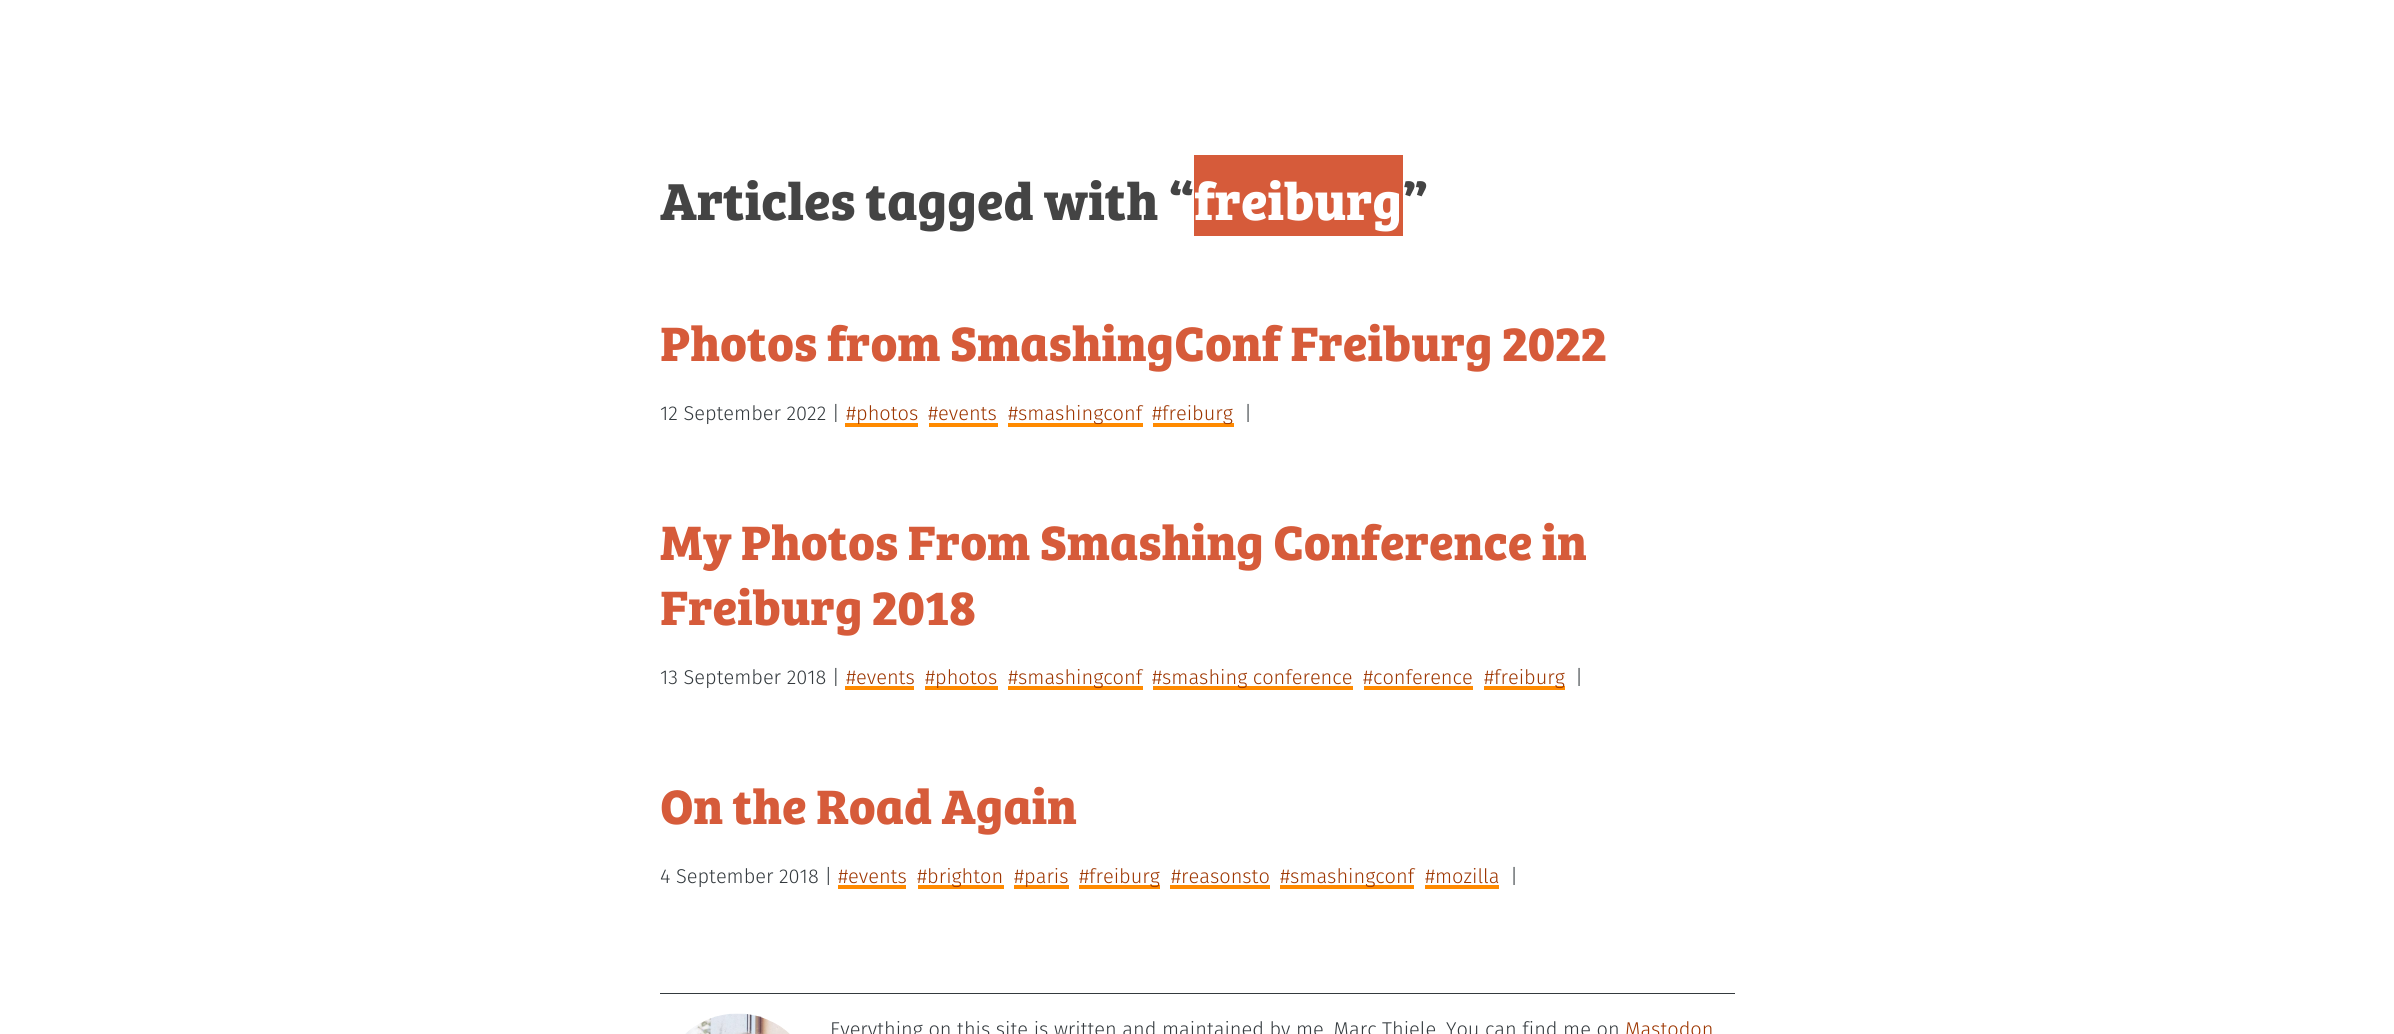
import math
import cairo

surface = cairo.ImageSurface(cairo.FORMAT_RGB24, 2394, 1034)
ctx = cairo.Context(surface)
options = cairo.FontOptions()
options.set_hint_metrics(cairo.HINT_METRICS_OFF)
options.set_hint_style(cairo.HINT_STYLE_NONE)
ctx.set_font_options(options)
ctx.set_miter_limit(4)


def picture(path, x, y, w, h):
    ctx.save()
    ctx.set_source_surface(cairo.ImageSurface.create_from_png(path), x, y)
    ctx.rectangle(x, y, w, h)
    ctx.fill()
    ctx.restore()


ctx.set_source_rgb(1, 1, 1)
ctx.paint()
ctx.select_font_face("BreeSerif", cairo.FONT_SLANT_NORMAL, cairo.FONT_WEIGHT_BOLD)
ctx.set_font_size(53.75)
ctx.set_source_rgb(0.267, 0.267, 0.267)
ctx.move_to(660, 220)
ctx.show_text("Articles tagged with “")
ctx.set_source_rgb(0.839, 0.357, 0.227)
ctx.rectangle(1194, 155, 209, 81)
ctx.fill()
ctx.set_source_rgb(1, 1, 1)
ctx.move_to(1194, 220)
ctx.show_text("freiburg")
ctx.set_source_rgb(0.267, 0.267, 0.267)
ctx.move_to(1402, 220)
ctx.show_text("”")
ctx.set_font_size(50)
ctx.set_source_rgb(0.839, 0.357, 0.227)
ctx.move_to(660, 361)
ctx.show_text("Photos from SmashingConf Freiburg 2022")
ctx.select_font_face("Fira Sans Light")
ctx.set_font_size(20)
ctx.set_source_rgb(0.204, 0.227, 0.243)
ctx.move_to(660, 420)
ctx.show_text("12 September 2022 |")
ctx.set_source_rgb(1, 0.541, 0)
ctx.rectangle(845, 423, 73, 4)
ctx.fill()
ctx.set_source_rgb(0.616, 0.208, 0)
ctx.move_to(846, 420)
ctx.show_text("#photos")
ctx.move_to(928, 420)
ctx.show_text("#events")
ctx.set_source_rgb(1, 0.541, 0)
ctx.rectangle(929, 423, 69, 4)
ctx.fill()
ctx.rectangle(1008, 423, 135, 4)
ctx.fill()
ctx.set_source_rgb(0.616, 0.208, 0)
ctx.move_to(1008, 420)
ctx.show_text("#smashingconf")
ctx.set_source_rgb(1, 0.541, 0)
ctx.rectangle(1153, 423, 81, 4)
ctx.fill()
ctx.set_source_rgb(0.616, 0.208, 0)
ctx.move_to(1152, 420)
ctx.show_text("#freiburg")
ctx.set_source_rgb(0.204, 0.227, 0.243)
ctx.move_to(1244, 420)
ctx.show_text("|")
ctx.select_font_face("BreeSerif", cairo.FONT_SLANT_NORMAL, cairo.FONT_WEIGHT_BOLD)
ctx.set_font_size(50)
ctx.set_source_rgb(0.839, 0.357, 0.227)
ctx.move_to(660, 560)
ctx.show_text("My Photos From Smashing Conference in")
ctx.move_to(660, 625)
ctx.show_text("Freiburg 2018")
ctx.select_font_face("Fira Sans Light")
ctx.set_font_size(20)
ctx.set_source_rgb(0.204, 0.227, 0.243)
ctx.move_to(660, 684)
ctx.show_text("13 September 2018 |")
ctx.set_source_rgb(0.616, 0.208, 0)
ctx.move_to(846, 684)
ctx.show_text("#events")
ctx.set_source_rgb(1, 0.541, 0)
ctx.rectangle(845, 686, 69, 4)
ctx.fill()
ctx.rectangle(925, 686, 73, 4)
ctx.fill()
ctx.set_source_rgb(0.616, 0.208, 0)
ctx.move_to(925, 684)
ctx.show_text("#photos")
ctx.set_source_rgb(1, 0.541, 0)
ctx.rectangle(1008, 686, 135, 4)
ctx.fill()
ctx.set_source_rgb(0.616, 0.208, 0)
ctx.move_to(1008, 684)
ctx.show_text("#smashingconf")
ctx.set_source_rgb(1, 0.541, 0)
ctx.rectangle(1153, 686, 200, 4)
ctx.fill()
ctx.set_source_rgb(0.616, 0.208, 0)
ctx.move_to(1152, 684)
ctx.show_text("#smashing conference")
ctx.move_to(1363, 684)
ctx.show_text("#conference")
ctx.set_source_rgb(1, 0.541, 0)
ctx.rectangle(1364, 686, 109, 4)
ctx.fill()
ctx.rectangle(1484, 686, 81, 4)
ctx.fill()
ctx.set_source_rgb(0.616, 0.208, 0)
ctx.move_to(1484, 684)
ctx.show_text("#freiburg")
ctx.set_source_rgb(0.204, 0.227, 0.243)
ctx.move_to(1575, 684)
ctx.show_text("|")
ctx.select_font_face("BreeSerif", cairo.FONT_SLANT_NORMAL, cairo.FONT_WEIGHT_BOLD)
ctx.set_font_size(50)
ctx.set_source_rgb(0.839, 0.357, 0.227)
ctx.move_to(660, 824)
ctx.show_text("On the Road Again")
ctx.select_font_face("Fira Sans Light")
ctx.set_font_size(20)
ctx.set_source_rgb(0.204, 0.227, 0.243)
ctx.move_to(660, 883)
ctx.show_text("4 September 2018 |")
ctx.set_source_rgb(0.616, 0.208, 0)
ctx.move_to(838, 883)
ctx.show_text("#events")
ctx.set_source_rgb(1, 0.541, 0)
ctx.rectangle(838, 885, 68, 4)
ctx.fill()
ctx.rectangle(918, 885, 86, 4)
ctx.fill()
ctx.set_source_rgb(0.616, 0.208, 0)
ctx.move_to(917, 883)
ctx.show_text("#brighton")
ctx.set_source_rgb(1, 0.541, 0)
ctx.rectangle(1014, 885, 55, 4)
ctx.fill()
ctx.set_source_rgb(0.616, 0.208, 0)
ctx.move_to(1014, 883)
ctx.show_text("#paris")
ctx.set_source_rgb(1, 0.541, 0)
ctx.rectangle(1079, 885, 81, 4)
ctx.fill()
ctx.set_source_rgb(0.616, 0.208, 0)
ctx.move_to(1079, 883)
ctx.show_text("#freiburg")
ctx.move_to(1171, 883)
ctx.show_text("#reasonsto")
ctx.set_source_rgb(1, 0.541, 0)
ctx.rectangle(1170, 885, 100, 4)
ctx.fill()
ctx.rectangle(1280, 885, 134, 4)
ctx.fill()
ctx.set_source_rgb(0.616, 0.208, 0)
ctx.move_to(1280, 883)
ctx.show_text("#smashingconf")
ctx.move_to(1425, 883)
ctx.show_text("#mozilla")
ctx.set_source_rgb(1, 0.541, 0)
ctx.rectangle(1425, 885, 74, 4)
ctx.fill()
ctx.set_source_rgb(0.204, 0.227, 0.243)
ctx.move_to(1510, 883)
ctx.show_text("|")
ctx.rectangle(660, 993, 1075, 1)
ctx.fill()
picture("img1.png", 685, 1013, 105, 21)
ctx.move_to(830, 1036)
ctx.show_text("Everything on this site is written and maintained by me, Marc Thiele. You can find me on")
ctx.set_source_rgb(0.616, 0.208, 0)
ctx.move_to(1625, 1036)
ctx.show_text("Mastodon")
surface.write_to_png("page.png")
